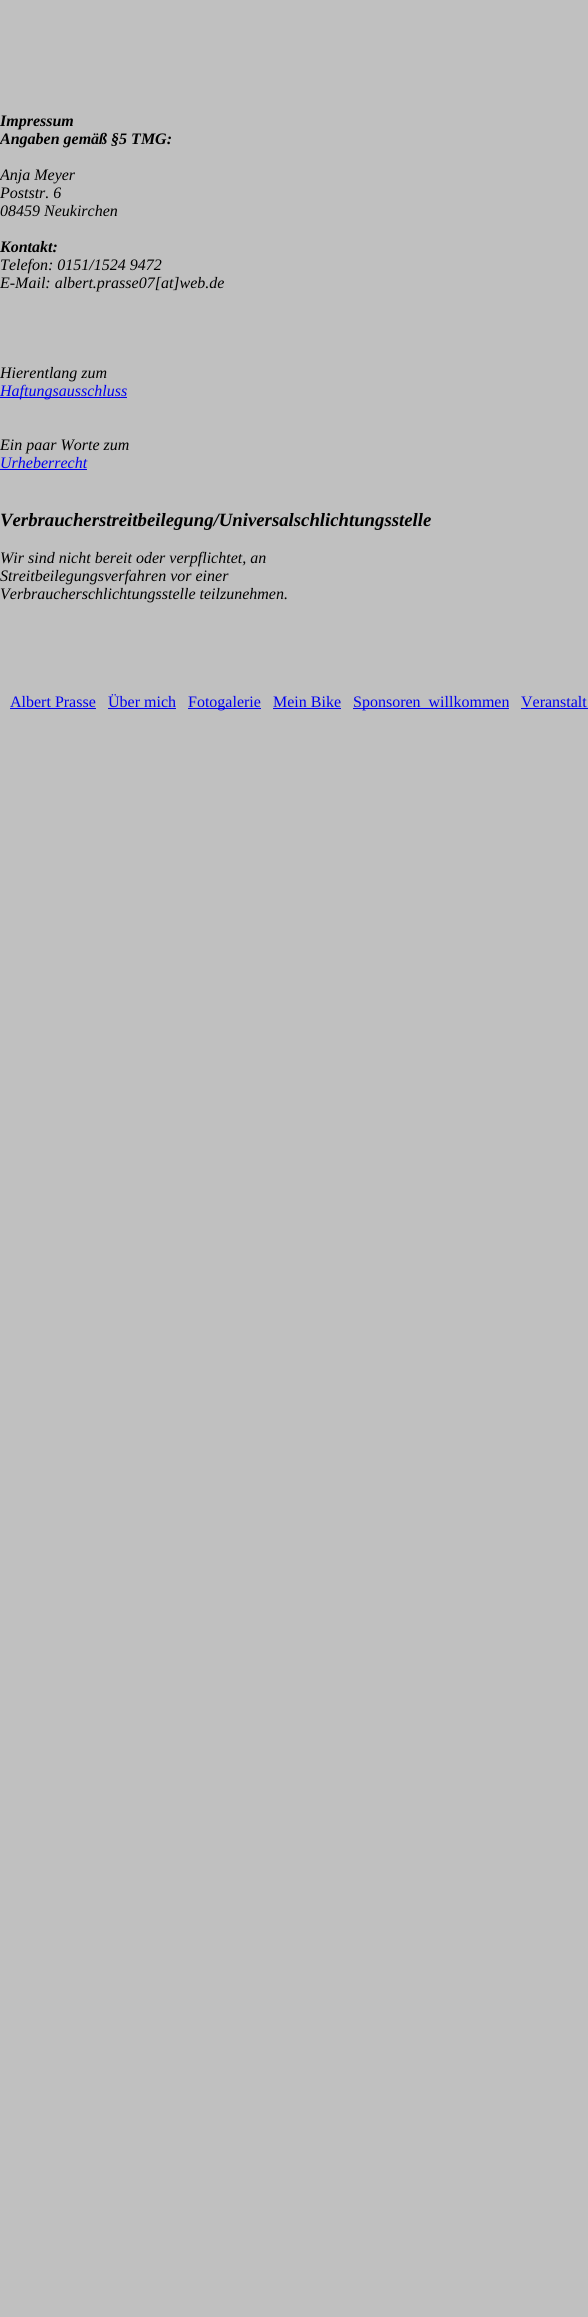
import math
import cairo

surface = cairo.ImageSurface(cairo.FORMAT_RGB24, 588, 2317)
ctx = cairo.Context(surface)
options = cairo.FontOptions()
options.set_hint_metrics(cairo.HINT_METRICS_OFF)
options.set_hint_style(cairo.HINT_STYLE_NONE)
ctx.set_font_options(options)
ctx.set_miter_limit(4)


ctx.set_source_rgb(0.753, 0.753, 0.753)
ctx.paint()
ctx.select_font_face("Liberation Serif", cairo.FONT_SLANT_ITALIC, cairo.FONT_WEIGHT_BOLD)
ctx.set_font_size(16)
ctx.set_source_rgb(0, 0, 0)
ctx.move_to(0, 126)
ctx.show_text("Impressum")
ctx.move_to(0, 144)
ctx.show_text("Angaben gemäß §5 TMG:")
ctx.select_font_face("Liberation Serif", cairo.FONT_SLANT_ITALIC)
ctx.move_to(0, 180)
ctx.show_text("Anja Meyer")
ctx.move_to(0, 198)
ctx.show_text("Poststr. 6")
ctx.move_to(0, 216)
ctx.show_text("08459 Neukirchen")
ctx.select_font_face("Liberation Serif", cairo.FONT_SLANT_ITALIC, cairo.FONT_WEIGHT_BOLD)
ctx.move_to(0, 252)
ctx.show_text("Kontakt:")
ctx.select_font_face("Liberation Serif", cairo.FONT_SLANT_ITALIC)
ctx.move_to(0, 270)
ctx.show_text("Telefon: 0151/1524 9472")
ctx.move_to(0, 288)
ctx.show_text("E-Mail: albert.prasse07[at]web.de")
ctx.move_to(0, 378)
ctx.show_text("Hierentlang zum")
ctx.set_source_rgb(0, 0, 0.933)
ctx.rectangle(0, 397, 127, 1)
ctx.fill()
ctx.move_to(0, 396)
ctx.show_text("Haftungsausschluss")
ctx.set_source_rgb(0, 0, 0)
ctx.move_to(0, 450)
ctx.show_text("Ein paar Worte zum")
ctx.set_source_rgb(0, 0, 0.933)
ctx.move_to(0, 468)
ctx.show_text("Urheberrecht")
ctx.rectangle(0, 469, 87, 1)
ctx.fill()
ctx.select_font_face("Liberation Serif", cairo.FONT_SLANT_ITALIC, cairo.FONT_WEIGHT_BOLD)
ctx.set_font_size(18.75)
ctx.set_source_rgb(0, 0, 0)
ctx.move_to(0, 526)
ctx.show_text("Verbraucherstreitbeilegung/Universalschlichtungsstelle")
ctx.select_font_face("Liberation Serif", cairo.FONT_SLANT_ITALIC)
ctx.set_font_size(16)
ctx.move_to(0, 563)
ctx.show_text("Wir sind nicht bereit oder verpflichtet, an")
ctx.move_to(0, 581)
ctx.show_text("Streitbeilegungsverfahren vor einer")
ctx.move_to(0, 599)
ctx.show_text("Verbraucherschlichtungsstelle teilzunehmen.")
ctx.select_font_face("Liberation Serif")
ctx.set_source_rgb(0, 0, 0.933)
ctx.move_to(10, 707)
ctx.show_text("Albert Prasse")
ctx.rectangle(10, 708, 86, 1)
ctx.fill()
ctx.move_to(108, 707)
ctx.show_text("Über mich")
ctx.rectangle(108, 708, 68, 1)
ctx.fill()
ctx.rectangle(188, 708, 73, 1)
ctx.fill()
ctx.move_to(188, 707)
ctx.show_text("Fotogalerie")
ctx.move_to(273, 707)
ctx.show_text("Mein Bike")
ctx.rectangle(273, 708, 68, 1)
ctx.fill()
ctx.rectangle(353, 708, 156, 1)
ctx.fill()
ctx.move_to(353, 707)
ctx.show_text("Sponsoren  willkommen")
ctx.move_to(521, 707)
ctx.show_text("Veranstalt")
ctx.rectangle(521, 708, 67, 1)
ctx.fill()
surface.write_to_png("page.png")
